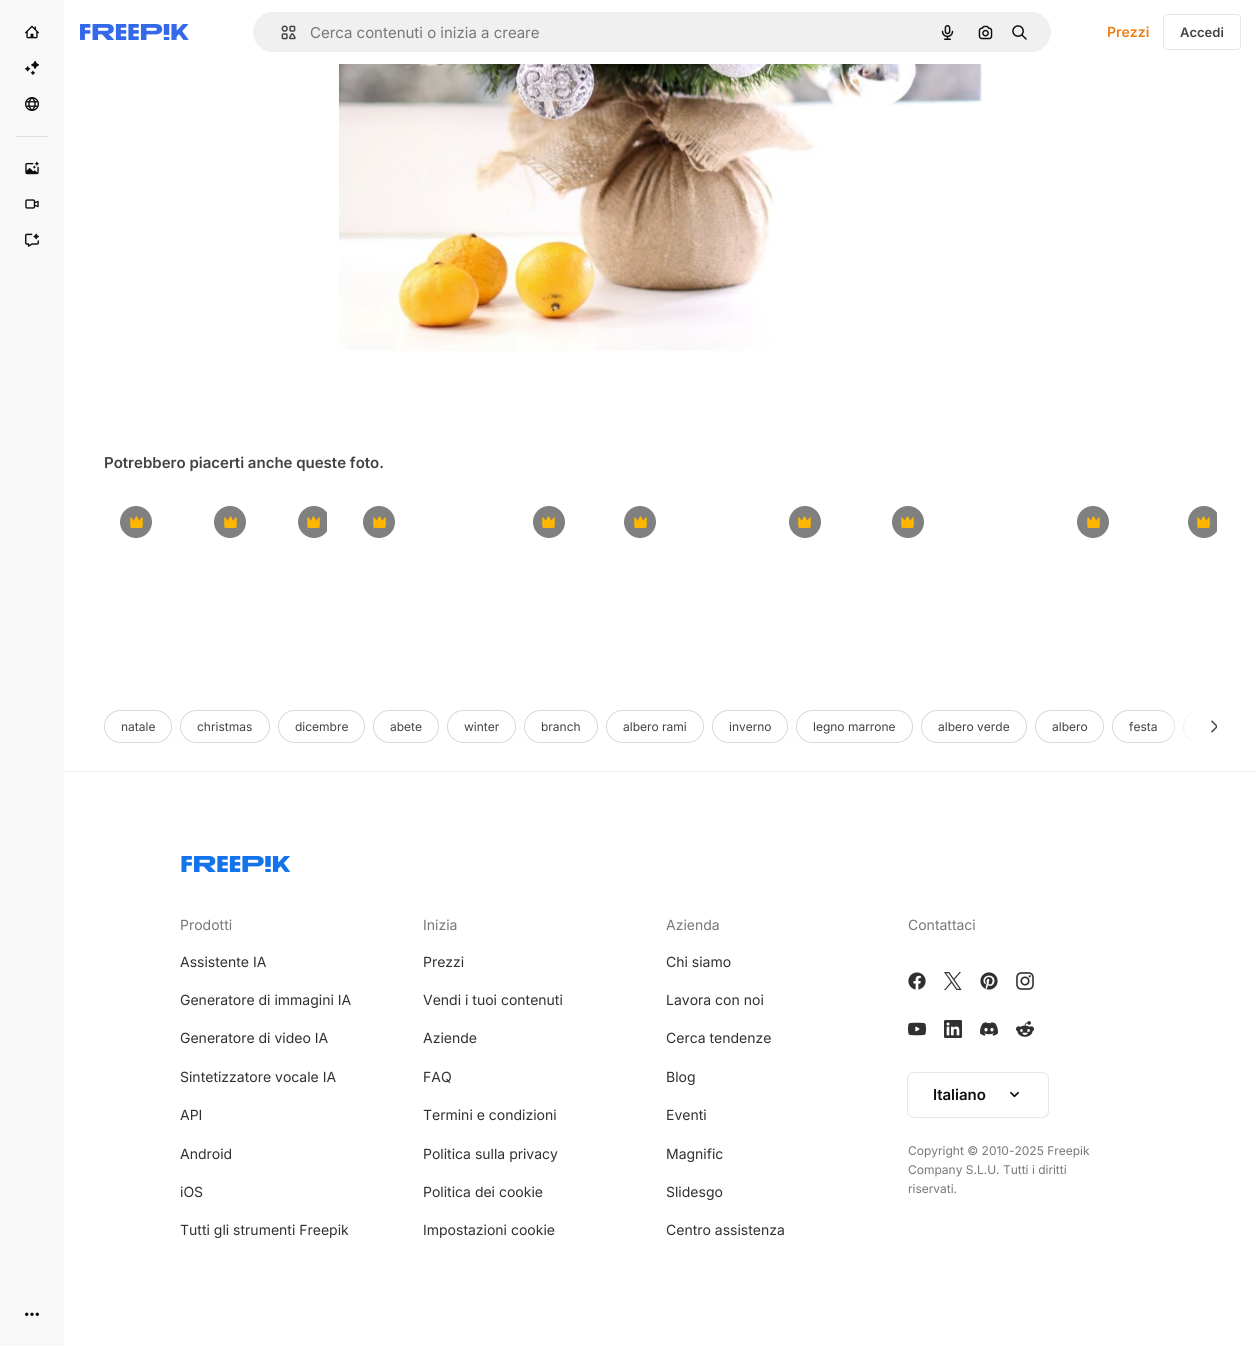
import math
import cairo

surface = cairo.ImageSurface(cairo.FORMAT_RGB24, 1257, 1346)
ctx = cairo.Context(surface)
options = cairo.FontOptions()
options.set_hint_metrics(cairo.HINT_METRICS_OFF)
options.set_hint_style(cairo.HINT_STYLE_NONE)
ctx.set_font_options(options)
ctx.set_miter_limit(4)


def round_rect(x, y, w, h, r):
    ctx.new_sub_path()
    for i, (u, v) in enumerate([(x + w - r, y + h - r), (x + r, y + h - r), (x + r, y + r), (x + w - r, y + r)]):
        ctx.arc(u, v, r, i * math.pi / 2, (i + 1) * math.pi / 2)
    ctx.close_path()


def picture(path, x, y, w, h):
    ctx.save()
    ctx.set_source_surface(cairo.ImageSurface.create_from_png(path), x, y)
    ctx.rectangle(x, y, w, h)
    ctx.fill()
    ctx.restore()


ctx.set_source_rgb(1, 1, 1)
ctx.paint()
ctx.set_source_rgb(0.969, 0.969, 0.969)
ctx.rectangle(0, 0, 64, 1346)
ctx.fill()
picture("img1.png", 25, 25, 14, 14)
picture("img2.png", 25, 61, 14, 14)
picture("img3.png", 25, 97, 14, 14)
ctx.set_source_rgb(0.878, 0.878, 0.878)
ctx.rectangle(16, 136, 32, 1)
ctx.fill()
picture("img4.png", 25, 161, 14, 14)
picture("img5.png", 25, 199, 14, 10)
picture("img6.png", 25, 233, 14, 14)
picture("img7.png", 25, 1312, 14, 4)
picture("img8.png", 80, 24, 109, 16)
ctx.set_source_rgb(0.941, 0.941, 0.941)
round_rect(252.5, 11.5, 799, 41, 20.5)
ctx.fill_preserve()
ctx.set_source_rgb(1, 1, 1)
ctx.set_line_width(1)
ctx.stroke()
picture("img9.png", 281, 25, 15, 15)
ctx.select_font_face("Inter")
ctx.set_font_size(15)
ctx.set_source_rgb(0.467, 0.467, 0.467)
ctx.move_to(310, 38)
ctx.show_text("Cerca contenuti o inizia a creare")
picture("img10.png", 941, 25, 13, 15)
picture("img11.png", 978, 25, 15, 15)
picture("img12.png", 1012, 25, 15, 15)
ctx.select_font_face("Inter SemiBold")
ctx.set_font_size(14)
ctx.set_source_rgb(0.918, 0.494, 0.067)
ctx.move_to(1107, 37)
ctx.show_text("Prezzi")
round_rect(1163.5, 14.5, 77, 35, 3.5)
ctx.set_source_rgb(0.906, 0.906, 0.906)
ctx.stroke()
ctx.set_font_size(13)
ctx.set_source_rgb(0.259, 0.259, 0.259)
ctx.move_to(1180, 37)
ctx.show_text("Accedi")
picture("img13.png", 339, 64, 643, 287)
ctx.set_font_size(15)
ctx.move_to(104, 468)
ctx.show_text("Potrebbero piacerti anche queste foto.")
ctx.set_source_rgb(0.502, 0.502, 0.502)
ctx.new_path()
ctx.arc(136, 522, 16, 0, 2 * math.pi)
ctx.fill()
picture("img14.png", 130, 516, 13, 12)
ctx.arc(230, 522, 16, 0, 2 * math.pi)
ctx.fill()
picture("img14.png", 224, 516, 13, 12)
ctx.save()
round_rect(282, 490, 45, 200, 16)
ctx.clip()
ctx.arc(314, 522, 16, 0, 2 * math.pi)
ctx.fill()
ctx.restore()
picture("img14.png", 307, 516, 13, 12)
ctx.arc(379, 522, 16, 0, 2 * math.pi)
ctx.fill()
picture("img14.png", 373, 516, 13, 12)
ctx.arc(549, 522, 16, 0, 2 * math.pi)
ctx.fill()
picture("img14.png", 542, 516, 13, 12)
ctx.arc(640, 522, 16, 0, 2 * math.pi)
ctx.fill()
picture("img14.png", 634, 516, 13, 12)
ctx.arc(805, 522, 16, 0, 2 * math.pi)
ctx.fill()
picture("img14.png", 798, 516, 13, 12)
ctx.arc(908, 522, 16, 0, 2 * math.pi)
ctx.fill()
picture("img14.png", 901, 516, 13, 12)
ctx.arc(1093, 522, 16, 0, 2 * math.pi)
ctx.fill()
picture("img14.png", 1087, 516, 13, 12)
ctx.save()
round_rect(1172, 490, 45, 200, 16)
ctx.clip()
ctx.arc(1204, 522, 16, 0, 2 * math.pi)
ctx.fill()
ctx.restore()
picture("img14.png", 1197, 516, 13, 12)
round_rect(104.5, 710.5, 67, 32, 16)
ctx.set_source_rgb(0.847, 0.847, 0.847)
ctx.stroke()
ctx.select_font_face("Inter")
ctx.set_font_size(12)
ctx.set_source_rgb(0.259, 0.259, 0.259)
ctx.move_to(121, 731)
ctx.show_text("natale")
round_rect(180.5, 710.5, 89, 32, 16)
ctx.set_source_rgb(0.847, 0.847, 0.847)
ctx.stroke()
ctx.set_source_rgb(0.259, 0.259, 0.259)
ctx.move_to(197, 731)
ctx.show_text("christmas")
round_rect(278.5, 710.5, 86, 32, 16)
ctx.set_source_rgb(0.847, 0.847, 0.847)
ctx.stroke()
ctx.set_source_rgb(0.259, 0.259, 0.259)
ctx.move_to(295, 731)
ctx.show_text("dicembre")
round_rect(373.5, 710.5, 65, 32, 16)
ctx.set_source_rgb(0.847, 0.847, 0.847)
ctx.stroke()
ctx.set_source_rgb(0.259, 0.259, 0.259)
ctx.move_to(390, 731)
ctx.show_text("abete")
round_rect(447.5, 710.5, 68, 32, 16)
ctx.set_source_rgb(0.847, 0.847, 0.847)
ctx.stroke()
ctx.set_source_rgb(0.259, 0.259, 0.259)
ctx.move_to(464, 731)
ctx.show_text("winter")
round_rect(524.5, 710.5, 73, 32, 16)
ctx.set_source_rgb(0.847, 0.847, 0.847)
ctx.stroke()
ctx.set_source_rgb(0.259, 0.259, 0.259)
ctx.move_to(541, 731)
ctx.show_text("branch")
round_rect(606.5, 710.5, 97, 32, 16)
ctx.set_source_rgb(0.847, 0.847, 0.847)
ctx.stroke()
ctx.set_source_rgb(0.259, 0.259, 0.259)
ctx.move_to(623, 731)
ctx.show_text("albero rami")
round_rect(712.5, 710.5, 75, 32, 16)
ctx.set_source_rgb(0.847, 0.847, 0.847)
ctx.stroke()
ctx.set_source_rgb(0.259, 0.259, 0.259)
ctx.move_to(729, 731)
ctx.show_text("inverno")
round_rect(796.5, 710.5, 116, 32, 16)
ctx.set_source_rgb(0.847, 0.847, 0.847)
ctx.stroke()
ctx.set_source_rgb(0.259, 0.259, 0.259)
ctx.move_to(813, 731)
ctx.show_text("legno marrone")
round_rect(921.5, 710.5, 105, 32, 16)
ctx.set_source_rgb(0.847, 0.847, 0.847)
ctx.stroke()
ctx.set_source_rgb(0.259, 0.259, 0.259)
ctx.move_to(938, 731)
ctx.show_text("albero verde")
round_rect(1035.5, 710.5, 68, 32, 16)
ctx.set_source_rgb(0.847, 0.847, 0.847)
ctx.stroke()
ctx.set_source_rgb(0.259, 0.259, 0.259)
ctx.move_to(1052, 731)
ctx.show_text("albero")
round_rect(1112.5, 710.5, 62, 32, 16)
ctx.set_source_rgb(0.847, 0.847, 0.847)
ctx.stroke()
ctx.set_source_rgb(0.259, 0.259, 0.259)
ctx.move_to(1129, 731)
ctx.show_text("festa")
ctx.save()
ctx.rectangle(104, 710, 1113, 33)
ctx.clip()
round_rect(1183.5, 710.5, 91, 32, 16)
ctx.set_source_rgb(0.847, 0.847, 0.847)
ctx.stroke()
ctx.restore()
ctx.set_source_rgb(1, 1, 1)
ctx.rectangle(1197, 710, 20, 33)
ctx.fill()
gradient = cairo.LinearGradient(1197, 727, 1162, 727)
gradient.add_color_stop_rgba(0, 1, 1, 1, 1)
gradient.add_color_stop_rgba(1, 1, 1, 1, 0)
ctx.set_source(gradient)
ctx.rectangle(1165, 710, 32, 33)
ctx.fill()
picture("img15.png", 1211, 720, 6, 13)
ctx.set_source_rgb(0.941, 0.941, 0.941)
ctx.rectangle(64, 771, 1193, 1)
ctx.fill()
picture("img16.png", 181, 856, 109, 16)
ctx.set_font_size(14)
ctx.set_source_rgb(0.467, 0.467, 0.467)
ctx.move_to(180, 930)
ctx.show_text("Prodotti")
ctx.set_source_rgb(0.188, 0.188, 0.188)
ctx.move_to(180, 967)
ctx.show_text("Assistente IA")
ctx.move_to(180, 1005)
ctx.show_text("Generatore di immagini IA")
ctx.move_to(180, 1043)
ctx.show_text("Generatore di video IA")
ctx.move_to(180, 1082)
ctx.show_text("Sintetizzatore vocale IA")
ctx.move_to(180, 1120)
ctx.show_text("API")
ctx.move_to(180, 1159)
ctx.show_text("Android")
ctx.move_to(180, 1197)
ctx.show_text("iOS")
ctx.move_to(180, 1235)
ctx.show_text("Tutti gli strumenti Freepik")
ctx.set_source_rgb(0.467, 0.467, 0.467)
ctx.move_to(423, 930)
ctx.show_text("Inizia")
ctx.set_source_rgb(0.188, 0.188, 0.188)
ctx.move_to(423, 967)
ctx.show_text("Prezzi")
ctx.move_to(423, 1005)
ctx.show_text("Vendi i tuoi contenuti")
ctx.move_to(423, 1043)
ctx.show_text("Aziende")
ctx.move_to(423, 1082)
ctx.show_text("FAQ")
ctx.move_to(423, 1120)
ctx.show_text("Termini e condizioni")
ctx.move_to(423, 1159)
ctx.show_text("Politica sulla privacy")
ctx.move_to(423, 1197)
ctx.show_text("Politica dei cookie")
ctx.move_to(423, 1235)
ctx.show_text("Impostazioni cookie")
ctx.set_source_rgb(0.467, 0.467, 0.467)
ctx.move_to(666, 930)
ctx.show_text("Azienda")
ctx.set_source_rgb(0.188, 0.188, 0.188)
ctx.move_to(666, 967)
ctx.show_text("Chi siamo")
ctx.move_to(666, 1005)
ctx.show_text("Lavora con noi")
ctx.move_to(666, 1043)
ctx.show_text("Cerca tendenze")
ctx.move_to(666, 1082)
ctx.show_text("Blog")
ctx.move_to(666, 1120)
ctx.show_text("Eventi")
ctx.move_to(666, 1159)
ctx.show_text("Magnific")
ctx.move_to(666, 1197)
ctx.show_text("Slidesgo")
ctx.move_to(666, 1235)
ctx.show_text("Centro assistenza")
ctx.set_source_rgb(0.467, 0.467, 0.467)
ctx.move_to(908, 930)
ctx.show_text("Contattaci")
picture("img17.png", 908, 972, 18, 18)
picture("img18.png", 944, 972, 18, 18)
picture("img19.png", 980, 972, 18, 18)
picture("img20.png", 1016, 972, 18, 18)
picture("img21.png", 908, 1022, 18, 14)
picture("img22.png", 944, 1020, 18, 18)
picture("img23.png", 980, 1022, 18, 14)
picture("img24.png", 1016, 1021, 18, 16)
round_rect(907.5, 1072.5, 141, 45, 6.5)
ctx.set_source_rgb(0.902, 0.902, 0.902)
ctx.stroke()
ctx.select_font_face("Inter SemiBold")
ctx.set_font_size(15)
ctx.set_source_rgb(0.051, 0.051, 0.051)
ctx.move_to(933, 1100)
ctx.show_text("Italiano")
picture("img25.png", 1010, 1091, 9, 7)
ctx.select_font_face("Inter")
ctx.set_font_size(12)
ctx.set_source_rgb(0.467, 0.467, 0.467)
ctx.move_to(908, 1155)
ctx.show_text("Copyright © 2010-2025 Freepik")
ctx.move_to(908, 1174)
ctx.show_text("Company S.L.U. Tutti i diritti")
ctx.move_to(908, 1193)
ctx.show_text("riservati.")
surface.write_to_png("page.png")
